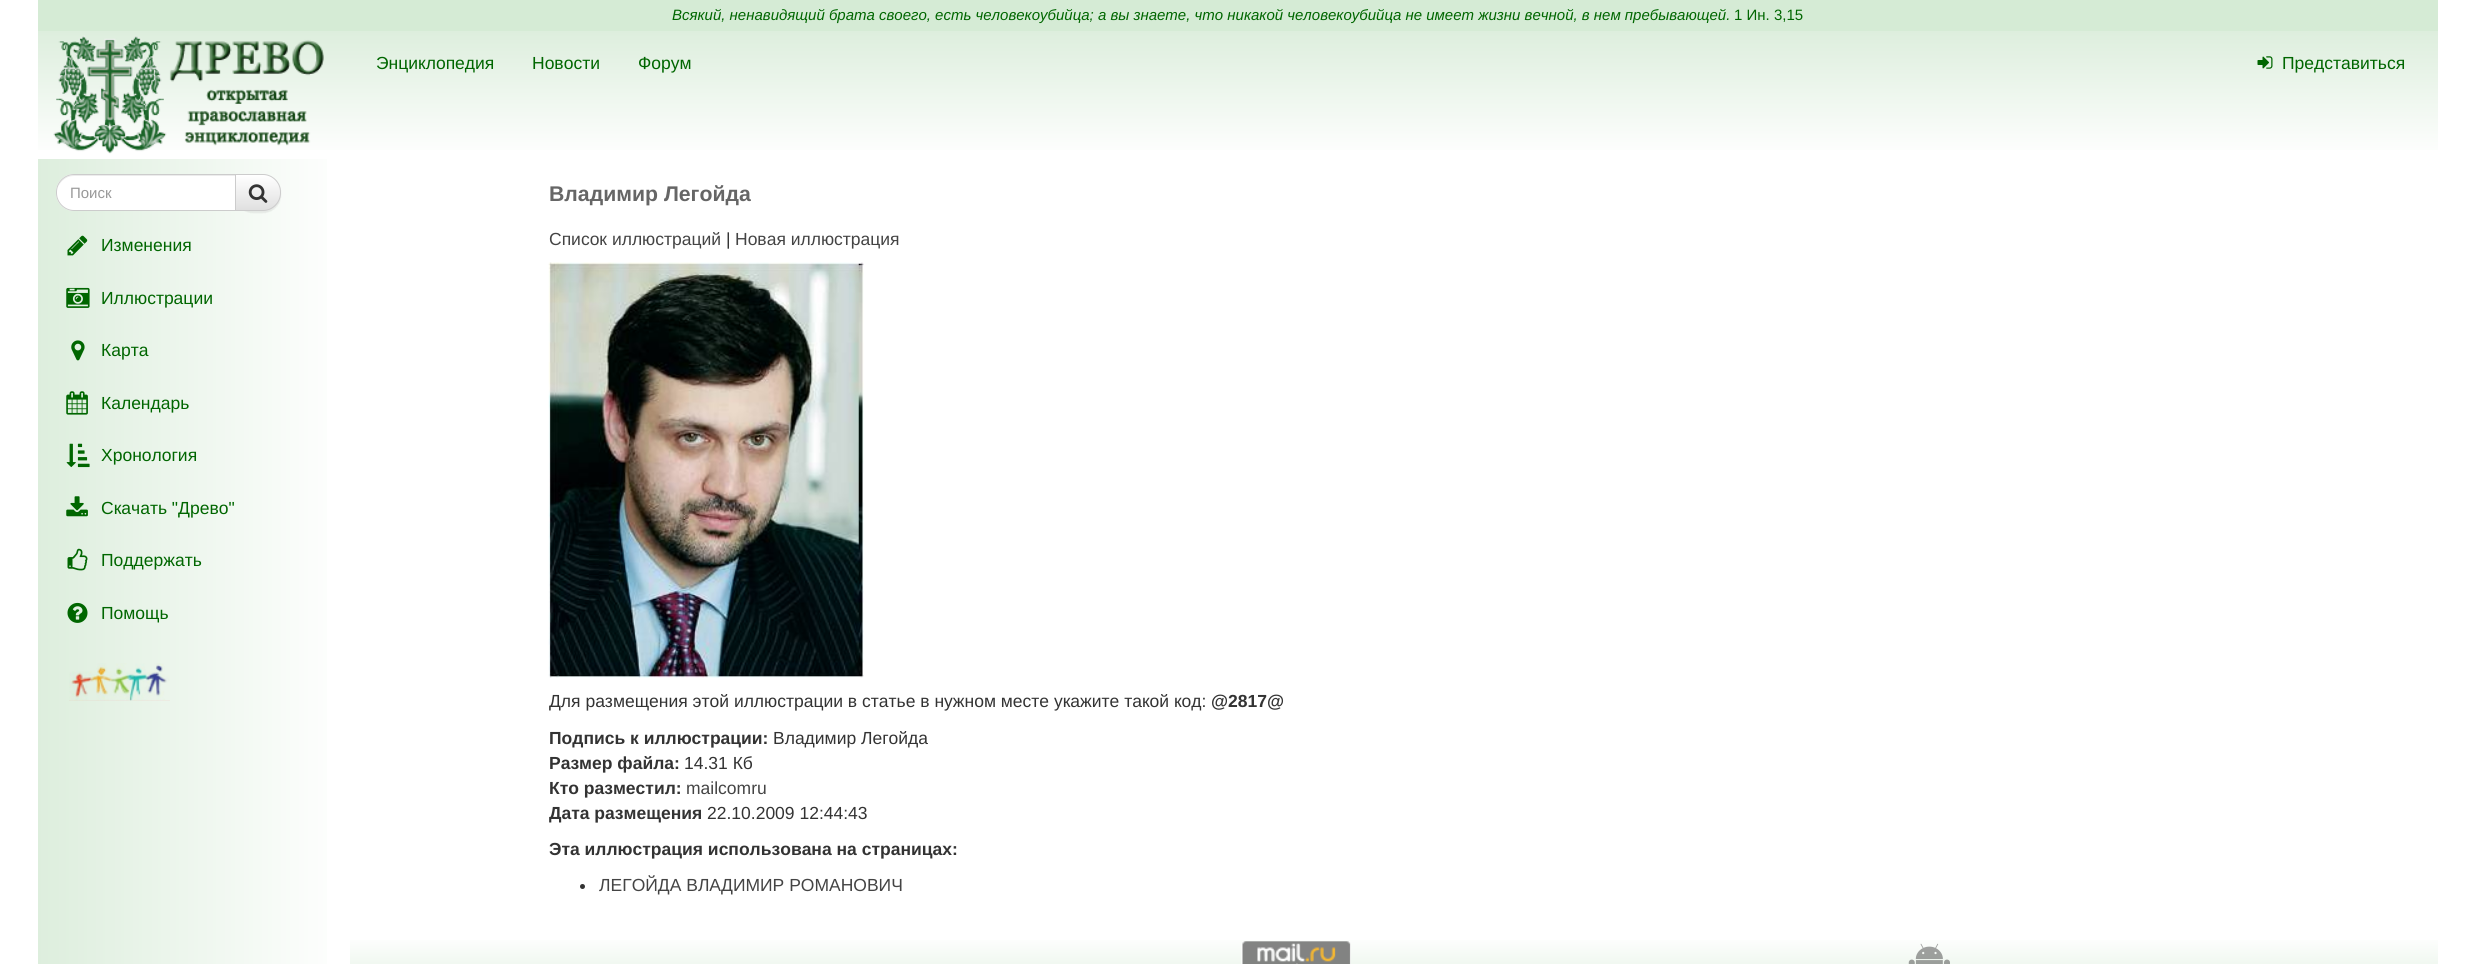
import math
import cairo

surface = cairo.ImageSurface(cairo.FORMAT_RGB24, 2474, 964)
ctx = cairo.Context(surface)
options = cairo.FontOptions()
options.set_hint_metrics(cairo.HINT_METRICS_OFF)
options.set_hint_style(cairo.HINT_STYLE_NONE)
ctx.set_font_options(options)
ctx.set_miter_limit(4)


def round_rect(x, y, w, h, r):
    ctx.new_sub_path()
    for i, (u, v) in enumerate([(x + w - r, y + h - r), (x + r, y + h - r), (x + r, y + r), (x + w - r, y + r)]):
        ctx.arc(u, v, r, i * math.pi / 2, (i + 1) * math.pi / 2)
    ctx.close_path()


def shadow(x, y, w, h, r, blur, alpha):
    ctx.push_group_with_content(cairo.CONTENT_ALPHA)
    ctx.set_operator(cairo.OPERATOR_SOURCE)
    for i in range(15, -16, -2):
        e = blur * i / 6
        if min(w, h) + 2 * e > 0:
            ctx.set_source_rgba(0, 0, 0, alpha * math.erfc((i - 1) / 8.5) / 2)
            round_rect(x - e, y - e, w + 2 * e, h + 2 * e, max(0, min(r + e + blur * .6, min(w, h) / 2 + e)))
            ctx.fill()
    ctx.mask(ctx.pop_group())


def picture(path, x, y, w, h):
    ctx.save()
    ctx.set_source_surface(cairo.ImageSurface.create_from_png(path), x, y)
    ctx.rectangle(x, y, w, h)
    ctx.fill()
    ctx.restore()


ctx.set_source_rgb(1, 1, 1)
ctx.paint()
ctx.set_source_rgb(0.835, 0.918, 0.835)
ctx.rectangle(38, 0, 2400, 31)
ctx.fill()
ctx.select_font_face("Liberation Sans", cairo.FONT_SLANT_ITALIC)
ctx.set_font_size(15)
ctx.set_source_rgb(0, 0.4, 0)
ctx.move_to(672, 20)
ctx.show_text("Всякий, ненавидящий брата своего, есть человекоубийца; а вы знаете, что никакой человекоубийца не имеет жизни вечной, в нем пребывающей.")
ctx.select_font_face("Liberation Sans")
ctx.move_to(1734, 20)
ctx.show_text("1 Ин. 3,15")
gradient = cairo.LinearGradient(1238, 31, 1238, 159)
gradient.add_color_stop_rgba(0, 0.867, 0.933, 0.867, 1)
gradient.add_color_stop_rgba(1, 1, 1, 1, 1)
ctx.set_source(gradient)
ctx.rectangle(38, 31, 2400, 119)
ctx.fill()
picture("img1.png", 53, 35, 271, 119)
ctx.set_font_size(17.5)
ctx.set_source_rgb(0, 0.4, 0)
ctx.move_to(376, 69)
ctx.show_text("Энциклопедия")
ctx.move_to(532, 69)
ctx.show_text("Новости")
ctx.move_to(638, 69)
ctx.show_text("Форум")
picture("img2.png", 2257, 56, 16, 13)
ctx.move_to(2282, 69)
ctx.show_text("Представиться")
gradient = cairo.LinearGradient(37, 502, 350, 502)
gradient.add_color_stop_rgba(0, 0.867, 0.933, 0.867, 1)
gradient.add_color_stop_rgba(1, 1, 1, 1, 1)
ctx.set_source(gradient)
ctx.rectangle(38, 159, 289, 805)
ctx.fill()
ctx.set_source_rgb(0, 0, 0)
shadow(235, 175, 46, 38, 18, 0.5, 0.07)
ctx.save()
ctx.new_path()
ctx.move_to(235, 174)
ctx.line_to(263, 174)
ctx.curve_to(273, 174, 281, 182, 281, 192)
ctx.line_to(281, 193)
ctx.curve_to(281, 203, 273, 211, 263, 211)
ctx.line_to(235, 211)
ctx.close_path()
ctx.clip()
gradient = cairo.LinearGradient(258, 175, 258, 210)
gradient.add_color_stop_rgba(0, 1, 1, 1, 1)
gradient.add_color_stop_rgba(1, 0.878, 0.878, 0.878, 1)
ctx.set_source(gradient)
ctx.rectangle(236, 175, 45, 35)
ctx.fill()
ctx.restore()
ctx.new_path()
ctx.move_to(235.5, 174.5)
ctx.line_to(263, 174.5)
ctx.curve_to(272.5, 174.5, 280.5, 182.5, 280.5, 192)
ctx.line_to(280.5, 193)
ctx.curve_to(280.5, 202.5, 272.5, 210.5, 263, 210.5)
ctx.line_to(235.5, 210.5)
ctx.close_path()
ctx.set_source_rgb(0.8, 0.8, 0.8)
ctx.set_line_width(1)
ctx.stroke()
ctx.set_source_rgb(1, 1, 1)
ctx.new_path()
ctx.move_to(74, 174)
ctx.line_to(236, 174)
ctx.line_to(236, 211)
ctx.line_to(74, 211)
ctx.curve_to(64, 211, 56, 203, 56, 193)
ctx.line_to(56, 192)
ctx.curve_to(56, 182, 64, 174, 74, 174)
ctx.close_path()
ctx.fill()
ctx.set_source_rgb(0.925, 0.925, 0.925)
ctx.new_path()
ctx.move_to(74, 176)
ctx.line_to(235, 176)
ctx.line_to(235, 175)
ctx.line_to(74, 175)
ctx.curve_to(66, 175, 60, 180, 58, 187)
ctx.curve_to(61, 181, 66, 176, 74, 176)
ctx.close_path()
ctx.fill()
ctx.new_path()
ctx.move_to(74, 174.5)
ctx.line_to(235.5, 174.5)
ctx.line_to(235.5, 210.5)
ctx.line_to(74, 210.5)
ctx.curve_to(64.5, 210.5, 56.5, 202.5, 56.5, 193)
ctx.line_to(56.5, 192)
ctx.curve_to(56.5, 182.5, 64.5, 174.5, 74, 174.5)
ctx.close_path()
ctx.set_source_rgb(0.8, 0.8, 0.8)
ctx.stroke()
ctx.set_font_size(15)
ctx.set_source_rgb(0.6, 0.6, 0.6)
ctx.move_to(70, 198)
ctx.show_text("Поиск")
picture("img3.png", 248, 184, 20, 19)
picture("img4.png", 67, 235, 21, 21)
ctx.set_font_size(17.5)
ctx.set_source_rgb(0, 0.4, 0)
ctx.move_to(101, 251)
ctx.show_text("Изменения")
picture("img5.png", 66, 287, 24, 21)
ctx.move_to(101, 304)
ctx.show_text("Иллюстрации")
picture("img6.png", 71, 340, 14, 21)
ctx.move_to(101, 356)
ctx.show_text("Карта")
picture("img7.png", 66, 391, 22, 24)
ctx.move_to(101, 409)
ctx.show_text("Календарь")
picture("img8.png", 66, 443, 24, 25)
ctx.move_to(101, 461)
ctx.show_text("Хронология")
picture("img9.png", 66, 496, 22, 21)
ctx.move_to(101, 514)
ctx.show_text("Скачать \"Древо\"")
picture("img10.png", 67, 548, 21, 23)
ctx.move_to(101, 566)
ctx.show_text("Поддержать")
picture("img11.png", 67, 602, 21, 21)
ctx.move_to(101, 619)
ctx.show_text("Помощь")
picture("img12.png", 69, 663, 101, 38)
ctx.select_font_face("Liberation Sans", cairo.FONT_SLANT_NORMAL, cairo.FONT_WEIGHT_BOLD)
ctx.set_font_size(21.25)
ctx.set_source_rgb(0.4, 0.4, 0.4)
ctx.move_to(549, 201)
ctx.show_text("Владимир Легойда")
ctx.select_font_face("Liberation Sans")
ctx.set_font_size(17.5)
ctx.set_source_rgb(0.267, 0.267, 0.267)
ctx.move_to(549, 245)
ctx.show_text("Список иллюстраций")
ctx.set_source_rgb(0.2, 0.2, 0.2)
ctx.move_to(726, 245)
ctx.show_text("|")
ctx.set_source_rgb(0.267, 0.267, 0.267)
ctx.move_to(735, 245)
ctx.show_text("Новая иллюстрация")
picture("img13.png", 548, 262, 316, 416)
ctx.set_source_rgb(0.2, 0.2, 0.2)
ctx.move_to(549, 707)
ctx.show_text("Для размещения этой иллюстрации в статье в нужном месте укажите такой код:")
ctx.select_font_face("Liberation Sans", cairo.FONT_SLANT_NORMAL, cairo.FONT_WEIGHT_BOLD)
ctx.move_to(1211, 707)
ctx.show_text("@2817@")
ctx.move_to(549, 744)
ctx.show_text("Подпись к иллюстрации:")
ctx.select_font_face("Liberation Sans")
ctx.move_to(773, 744)
ctx.show_text("Владимир Легойда")
ctx.select_font_face("Liberation Sans", cairo.FONT_SLANT_NORMAL, cairo.FONT_WEIGHT_BOLD)
ctx.move_to(549, 769)
ctx.show_text("Размер файла:")
ctx.select_font_face("Liberation Sans")
ctx.move_to(684, 769)
ctx.show_text("14.31 Кб")
ctx.select_font_face("Liberation Sans", cairo.FONT_SLANT_NORMAL, cairo.FONT_WEIGHT_BOLD)
ctx.move_to(549, 794)
ctx.show_text("Кто разместил:")
ctx.select_font_face("Liberation Sans")
ctx.set_source_rgb(0.267, 0.267, 0.267)
ctx.move_to(686, 794)
ctx.show_text("mailcomru")
ctx.select_font_face("Liberation Sans", cairo.FONT_SLANT_NORMAL, cairo.FONT_WEIGHT_BOLD)
ctx.set_source_rgb(0.2, 0.2, 0.2)
ctx.move_to(549, 819)
ctx.show_text("Дата размещения")
ctx.select_font_face("Liberation Sans")
ctx.move_to(707, 819)
ctx.show_text("22.10.2009 12:44:43")
ctx.select_font_face("Liberation Sans", cairo.FONT_SLANT_NORMAL, cairo.FONT_WEIGHT_BOLD)
ctx.move_to(549, 855)
ctx.show_text("Эта иллюстрация использована на страницах:")
ctx.new_path()
ctx.arc(582.5, 886.5, 2.5, 0, 2 * math.pi)
ctx.fill()
ctx.select_font_face("Liberation Sans")
ctx.set_source_rgb(0.267, 0.267, 0.267)
ctx.move_to(599, 891)
ctx.show_text("ЛЕГОЙДА ВЛАДИМИР РОМАНОВИЧ")
gradient = cairo.LinearGradient(1238, 935, 1238, 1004)
gradient.add_color_stop_rgba(0, 1, 1, 1, 1)
gradient.add_color_stop_rgba(1, 0.867, 0.933, 0.867, 1)
ctx.set_source(gradient)
ctx.rectangle(350, 940, 2088, 24)
ctx.fill()
picture("img14.png", 1241, 941, 110, 23)
picture("img15.png", 1908, 943, 42, 21)
surface.write_to_png("page.png")
